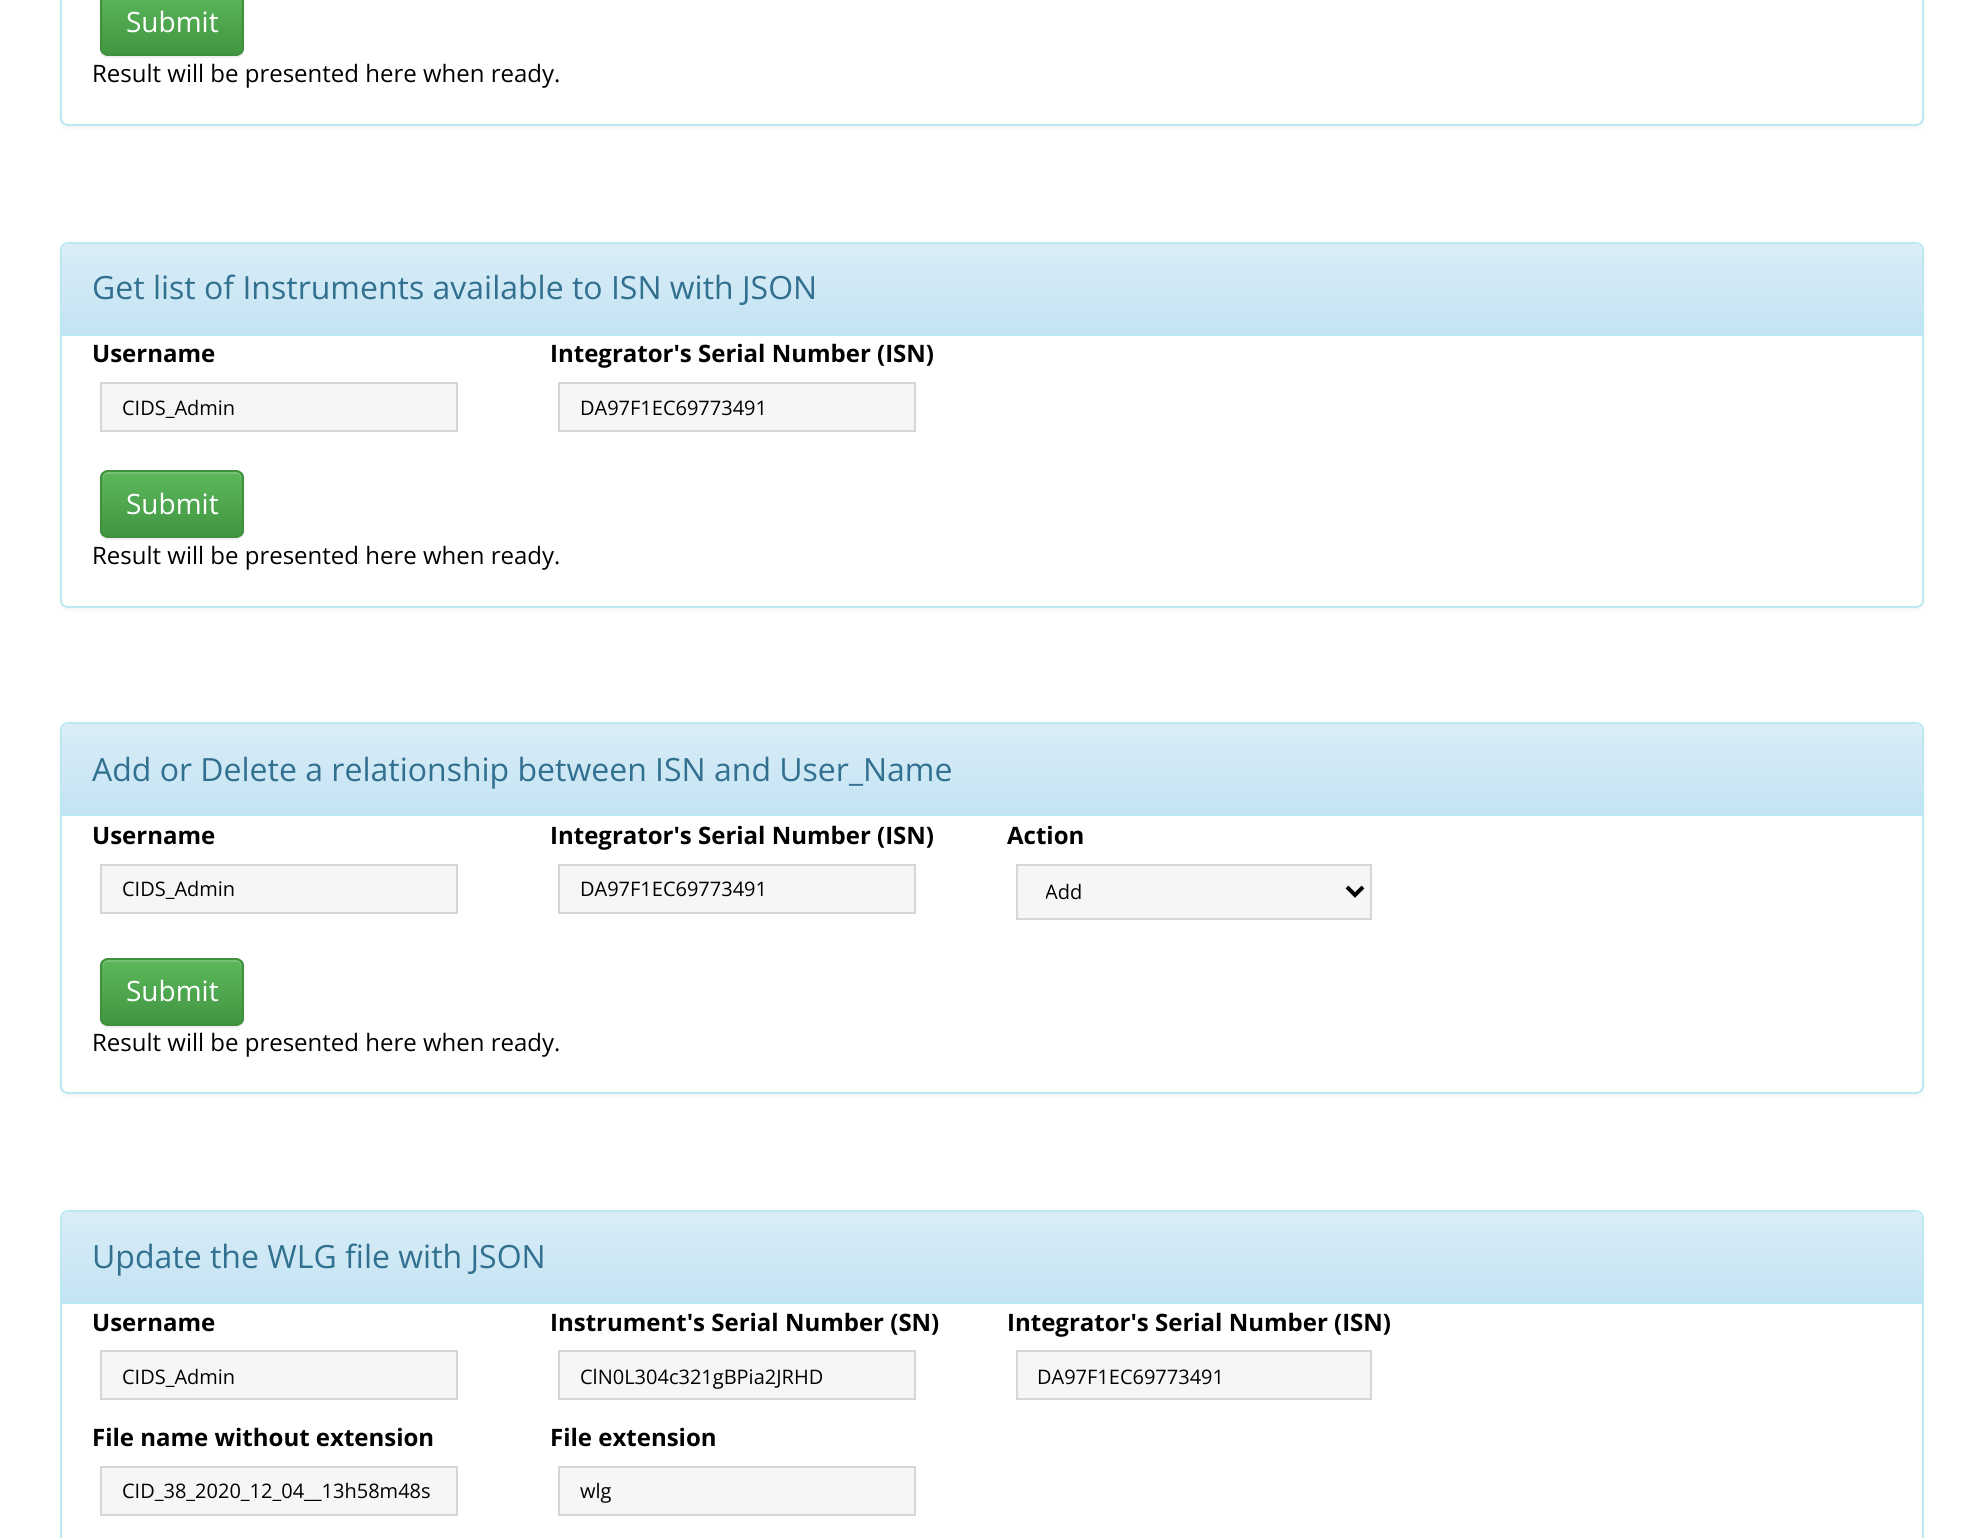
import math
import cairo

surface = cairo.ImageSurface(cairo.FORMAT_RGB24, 1983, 1538)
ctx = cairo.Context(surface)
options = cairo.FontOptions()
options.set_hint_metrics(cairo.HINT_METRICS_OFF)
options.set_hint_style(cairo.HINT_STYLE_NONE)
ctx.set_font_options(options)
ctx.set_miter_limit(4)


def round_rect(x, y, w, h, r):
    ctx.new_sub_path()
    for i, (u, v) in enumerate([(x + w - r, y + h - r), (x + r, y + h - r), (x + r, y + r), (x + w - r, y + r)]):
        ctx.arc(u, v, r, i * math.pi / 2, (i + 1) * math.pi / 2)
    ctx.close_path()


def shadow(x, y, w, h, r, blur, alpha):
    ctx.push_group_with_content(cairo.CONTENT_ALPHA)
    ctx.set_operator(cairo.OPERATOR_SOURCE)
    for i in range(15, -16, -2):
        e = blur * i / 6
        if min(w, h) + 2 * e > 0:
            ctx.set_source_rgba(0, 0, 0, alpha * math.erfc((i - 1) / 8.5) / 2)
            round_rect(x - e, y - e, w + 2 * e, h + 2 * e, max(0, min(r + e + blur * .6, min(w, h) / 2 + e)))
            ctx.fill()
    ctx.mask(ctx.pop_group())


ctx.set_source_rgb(1, 1, 1)
ctx.paint()
ctx.set_source_rgb(0, 0, 0)
shadow(60, -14, 1864, 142, 8, 2, 0.05)
ctx.set_source_rgb(1, 1, 1)
round_rect(61, -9, 1862, 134, 7)
ctx.fill_preserve()
ctx.set_source_rgb(0.737, 0.91, 0.945)
ctx.stroke()
ctx.set_source_rgb(0, 0, 0)
shadow(100, -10, 144, 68, 8, 1, 0.07)
ctx.save()
round_rect(100, -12, 144, 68, 8)
ctx.clip()
gradient = cairo.LinearGradient(172, -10, 172, 54)
gradient.add_color_stop_rgba(0, 0.361, 0.722, 0.361, 1)
gradient.add_color_stop_rgba(1, 0.255, 0.588, 0.255, 1)
ctx.set_source(gradient)
ctx.rectangle(100, 0, 144, 54)
ctx.fill()
ctx.restore()
round_rect(101, -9, 142, 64, 7)
ctx.set_source_rgb(0.243, 0.561, 0.243)
ctx.stroke()
ctx.select_font_face("Open Sans")
ctx.set_font_size(28)
ctx.set_source_rgb(1, 1, 1)
ctx.move_to(126, 32)
ctx.show_text("Submit")
ctx.set_font_size(24)
ctx.set_source_rgb(0, 0, 0)
ctx.move_to(92, 82)
ctx.show_text("Result will be presented here when ready.")
ctx.set_source_rgb(0, 0, 0)
shadow(60, 244, 1864, 366, 8, 2, 0.05)
ctx.set_source_rgb(1, 1, 1)
round_rect(61, 243, 1862, 364, 7)
ctx.fill_preserve()
ctx.set_source_rgb(0.737, 0.91, 0.945)
ctx.stroke()
gradient = cairo.LinearGradient(992, 244, 992, 334)
gradient.add_color_stop_rgba(0, 0.851, 0.929, 0.969, 1)
gradient.add_color_stop_rgba(1, 0.769, 0.89, 0.953, 1)
ctx.set_source(gradient)
ctx.new_path()
ctx.move_to(68, 244)
ctx.line_to(1916, 244)
ctx.curve_to(1919.5, 244, 1922, 246.5, 1922, 250)
ctx.line_to(1922, 334)
ctx.line_to(62, 334)
ctx.line_to(62, 250)
ctx.curve_to(62, 246.5, 64.5, 244, 68, 244)
ctx.close_path()
ctx.fill()
ctx.set_source_rgb(0.737, 0.91, 0.945)
ctx.rectangle(62, 334, 1860, 2)
ctx.fill()
ctx.set_font_size(32)
ctx.set_source_rgb(0.192, 0.439, 0.561)
ctx.move_to(92, 299)
ctx.show_text("Get list of Instruments available to ISN with JSON")
ctx.select_font_face("Open Sans", cairo.FONT_SLANT_NORMAL, cairo.FONT_WEIGHT_BOLD)
ctx.set_font_size(24)
ctx.set_source_rgb(0, 0, 0)
ctx.move_to(92, 362)
ctx.show_text("Username")
ctx.set_source_rgb(0.961, 0.961, 0.961)
ctx.rectangle(101, 383, 356, 48)
ctx.fill_preserve()
ctx.set_source_rgb(0.855, 0.835, 0.835)
ctx.stroke()
ctx.select_font_face("Open Sans")
ctx.set_font_size(20)
ctx.set_source_rgb(0, 0, 0)
ctx.move_to(122, 415)
ctx.show_text("CIDS_Admin")
ctx.select_font_face("Open Sans", cairo.FONT_SLANT_NORMAL, cairo.FONT_WEIGHT_BOLD)
ctx.set_font_size(24)
ctx.move_to(550, 362)
ctx.show_text("Integrator's Serial Number (ISN)")
ctx.set_source_rgb(0.961, 0.961, 0.961)
ctx.rectangle(559, 383, 356, 48)
ctx.fill_preserve()
ctx.set_source_rgb(0.855, 0.835, 0.835)
ctx.stroke()
ctx.select_font_face("Open Sans")
ctx.set_font_size(20)
ctx.set_source_rgb(0, 0, 0)
ctx.move_to(580, 415)
ctx.show_text("DA97F1EC69773491")
ctx.set_source_rgb(0, 0, 0)
shadow(100, 472, 144, 68, 8, 1, 0.07)
ctx.save()
round_rect(100, 470, 144, 68, 8)
ctx.clip()
gradient = cairo.LinearGradient(172, 472, 172, 536)
gradient.add_color_stop_rgba(0, 0.361, 0.722, 0.361, 1)
gradient.add_color_stop_rgba(1, 0.255, 0.588, 0.255, 1)
ctx.set_source(gradient)
ctx.rectangle(100, 472, 144, 64)
ctx.fill()
ctx.restore()
ctx.set_source_rgba(1, 1, 1, 0.15)
ctx.new_path()
ctx.move_to(108, 474)
ctx.line_to(236, 474)
ctx.curve_to(239, 474, 242, 477, 242, 480)
ctx.line_to(242, 478)
ctx.curve_to(242, 475, 239, 472, 236, 472)
ctx.line_to(108, 472)
ctx.curve_to(105, 472, 102, 475, 102, 478)
ctx.line_to(102, 480)
ctx.curve_to(102, 477, 105, 474, 108, 474)
ctx.close_path()
ctx.fill()
round_rect(101, 471, 142, 66, 7)
ctx.set_source_rgb(0.243, 0.561, 0.243)
ctx.stroke()
ctx.set_font_size(28)
ctx.set_source_rgb(1, 1, 1)
ctx.move_to(126, 514)
ctx.show_text("Submit")
ctx.set_font_size(24)
ctx.set_source_rgb(0, 0, 0)
ctx.move_to(92, 564)
ctx.show_text("Result will be presented here when ready.")
ctx.set_source_rgb(0, 0, 0)
shadow(60, 724, 1864, 372, 8, 2, 0.05)
ctx.set_source_rgb(1, 1, 1)
round_rect(61, 723, 1862, 370, 7)
ctx.fill_preserve()
ctx.set_source_rgb(0.737, 0.91, 0.945)
ctx.stroke()
gradient = cairo.LinearGradient(992, 724, 992, 814)
gradient.add_color_stop_rgba(0, 0.851, 0.929, 0.969, 1)
gradient.add_color_stop_rgba(1, 0.769, 0.89, 0.953, 1)
ctx.set_source(gradient)
ctx.new_path()
ctx.move_to(68, 724)
ctx.line_to(1916, 724)
ctx.curve_to(1919.5, 724, 1922, 726.5, 1922, 730)
ctx.line_to(1922, 814)
ctx.line_to(62, 814)
ctx.line_to(62, 730)
ctx.curve_to(62, 726.5, 64.5, 724, 68, 724)
ctx.close_path()
ctx.fill()
ctx.set_source_rgb(0.737, 0.91, 0.945)
ctx.rectangle(62, 814, 1860, 2)
ctx.fill()
ctx.set_font_size(32)
ctx.set_source_rgb(0.192, 0.439, 0.561)
ctx.move_to(92, 781)
ctx.show_text("Add or Delete a relationship between ISN and User_Name")
ctx.select_font_face("Open Sans", cairo.FONT_SLANT_NORMAL, cairo.FONT_WEIGHT_BOLD)
ctx.set_font_size(24)
ctx.set_source_rgb(0, 0, 0)
ctx.move_to(92, 844)
ctx.show_text("Username")
ctx.set_source_rgb(0.961, 0.961, 0.961)
ctx.rectangle(101, 865, 356, 48)
ctx.fill_preserve()
ctx.set_source_rgb(0.855, 0.835, 0.835)
ctx.stroke()
ctx.select_font_face("Open Sans")
ctx.set_font_size(20)
ctx.set_source_rgb(0, 0, 0)
ctx.move_to(122, 896)
ctx.show_text("CIDS_Admin")
ctx.select_font_face("Open Sans", cairo.FONT_SLANT_NORMAL, cairo.FONT_WEIGHT_BOLD)
ctx.set_font_size(24)
ctx.move_to(550, 844)
ctx.show_text("Integrator's Serial Number (ISN)")
ctx.set_source_rgb(0.961, 0.961, 0.961)
ctx.rectangle(559, 865, 356, 48)
ctx.fill_preserve()
ctx.set_source_rgb(0.855, 0.835, 0.835)
ctx.stroke()
ctx.select_font_face("Open Sans")
ctx.set_font_size(20)
ctx.set_source_rgb(0, 0, 0)
ctx.move_to(580, 896)
ctx.show_text("DA97F1EC69773491")
ctx.select_font_face("Open Sans", cairo.FONT_SLANT_NORMAL, cairo.FONT_WEIGHT_BOLD)
ctx.set_font_size(24)
ctx.move_to(1007, 844)
ctx.show_text("Action")
ctx.set_source_rgb(0.961, 0.961, 0.961)
ctx.rectangle(1017, 865, 354, 54)
ctx.fill_preserve()
ctx.set_source_rgb(0.855, 0.835, 0.835)
ctx.stroke()
ctx.new_path()
ctx.move_to(1347, 887)
ctx.line_to(1355, 895)
ctx.line_to(1363, 887)
ctx.set_source_rgb(0, 0, 0)
ctx.set_line_width(4)
ctx.stroke()
ctx.save()
ctx.rectangle(1046, 876, 268, 32)
ctx.clip()
ctx.select_font_face("Open Sans")
ctx.set_font_size(20)
ctx.move_to(1045, 899)
ctx.show_text("Add")
ctx.restore()
ctx.set_source_rgb(0, 0, 0)
shadow(100, 960, 144, 68, 8, 1, 0.07)
ctx.save()
round_rect(100, 958, 144, 68, 8)
ctx.clip()
gradient = cairo.LinearGradient(172, 960, 172, 1024)
gradient.add_color_stop_rgba(0, 0.361, 0.722, 0.361, 1)
gradient.add_color_stop_rgba(1, 0.255, 0.588, 0.255, 1)
ctx.set_source(gradient)
ctx.rectangle(100, 960, 144, 64)
ctx.fill()
ctx.restore()
ctx.set_source_rgba(1, 1, 1, 0.15)
ctx.new_path()
ctx.move_to(108, 962)
ctx.line_to(236, 962)
ctx.curve_to(239, 962, 242, 965, 242, 968)
ctx.line_to(242, 966)
ctx.curve_to(242, 963, 239, 960, 236, 960)
ctx.line_to(108, 960)
ctx.curve_to(105, 960, 102, 963, 102, 966)
ctx.line_to(102, 968)
ctx.curve_to(102, 965, 105, 962, 108, 962)
ctx.close_path()
ctx.fill()
round_rect(101, 959, 142, 66, 7)
ctx.set_source_rgb(0.243, 0.561, 0.243)
ctx.set_line_width(2)
ctx.stroke()
ctx.select_font_face("Open Sans")
ctx.set_font_size(28)
ctx.set_source_rgb(1, 1, 1)
ctx.move_to(126, 1001)
ctx.show_text("Submit")
ctx.set_font_size(24)
ctx.set_source_rgb(0, 0, 0)
ctx.move_to(92, 1051)
ctx.show_text("Result will be presented here when ready.")
round_rect(61, 1211, 1862, 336, 7)
ctx.set_source_rgb(0.737, 0.91, 0.945)
ctx.stroke()
gradient = cairo.LinearGradient(992, 1212, 992, 1302)
gradient.add_color_stop_rgba(0, 0.851, 0.929, 0.969, 1)
gradient.add_color_stop_rgba(1, 0.769, 0.89, 0.953, 1)
ctx.set_source(gradient)
ctx.new_path()
ctx.move_to(68, 1212)
ctx.line_to(1916, 1212)
ctx.curve_to(1919.5, 1212, 1922, 1214.5, 1922, 1218)
ctx.line_to(1922, 1302)
ctx.line_to(62, 1302)
ctx.line_to(62, 1218)
ctx.curve_to(62, 1214.5, 64.5, 1212, 68, 1212)
ctx.close_path()
ctx.fill()
ctx.set_source_rgb(0.737, 0.91, 0.945)
ctx.rectangle(62, 1302, 1860, 2)
ctx.fill()
ctx.set_font_size(32)
ctx.set_source_rgb(0.192, 0.439, 0.561)
ctx.move_to(92, 1268)
ctx.show_text("Update the WLG file with JSON")
ctx.select_font_face("Open Sans", cairo.FONT_SLANT_NORMAL, cairo.FONT_WEIGHT_BOLD)
ctx.set_font_size(24)
ctx.set_source_rgb(0, 0, 0)
ctx.move_to(92, 1331)
ctx.show_text("Username")
ctx.set_source_rgb(0.961, 0.961, 0.961)
ctx.rectangle(101, 1351, 356, 48)
ctx.fill_preserve()
ctx.set_source_rgb(0.855, 0.835, 0.835)
ctx.stroke()
ctx.select_font_face("Open Sans")
ctx.set_font_size(20)
ctx.set_source_rgb(0, 0, 0)
ctx.move_to(122, 1384)
ctx.show_text("CIDS_Admin")
ctx.select_font_face("Open Sans", cairo.FONT_SLANT_NORMAL, cairo.FONT_WEIGHT_BOLD)
ctx.set_font_size(24)
ctx.move_to(550, 1331)
ctx.show_text("Instrument's Serial Number (SN)")
ctx.set_source_rgb(0.961, 0.961, 0.961)
ctx.rectangle(559, 1351, 356, 48)
ctx.fill_preserve()
ctx.set_source_rgb(0.855, 0.835, 0.835)
ctx.stroke()
ctx.select_font_face("Open Sans")
ctx.set_font_size(20)
ctx.set_source_rgb(0, 0, 0)
ctx.move_to(580, 1384)
ctx.show_text("ClN0L304c321gBPia2JRHD")
ctx.select_font_face("Open Sans", cairo.FONT_SLANT_NORMAL, cairo.FONT_WEIGHT_BOLD)
ctx.set_font_size(24)
ctx.move_to(1007, 1331)
ctx.show_text("Integrator's Serial Number (ISN)")
ctx.set_source_rgb(0.961, 0.961, 0.961)
ctx.rectangle(1017, 1351, 354, 48)
ctx.fill_preserve()
ctx.set_source_rgb(0.855, 0.835, 0.835)
ctx.stroke()
ctx.select_font_face("Open Sans")
ctx.set_font_size(20)
ctx.set_source_rgb(0, 0, 0)
ctx.move_to(1037, 1384)
ctx.show_text("DA97F1EC69773491")
ctx.select_font_face("Open Sans", cairo.FONT_SLANT_NORMAL, cairo.FONT_WEIGHT_BOLD)
ctx.set_font_size(24)
ctx.move_to(92, 1446)
ctx.show_text("File name without extension")
ctx.set_source_rgb(0.961, 0.961, 0.961)
ctx.rectangle(101, 1467, 356, 48)
ctx.fill_preserve()
ctx.set_source_rgb(0.855, 0.835, 0.835)
ctx.stroke()
ctx.select_font_face("Open Sans")
ctx.set_font_size(20)
ctx.set_source_rgb(0, 0, 0)
ctx.move_to(122, 1498)
ctx.show_text("CID_38_2020_12_04__13h58m48s")
ctx.select_font_face("Open Sans", cairo.FONT_SLANT_NORMAL, cairo.FONT_WEIGHT_BOLD)
ctx.set_font_size(24)
ctx.move_to(550, 1446)
ctx.show_text("File extension")
ctx.set_source_rgb(0.961, 0.961, 0.961)
ctx.rectangle(559, 1467, 356, 48)
ctx.fill_preserve()
ctx.set_source_rgb(0.855, 0.835, 0.835)
ctx.stroke()
ctx.select_font_face("Open Sans")
ctx.set_font_size(20)
ctx.set_source_rgb(0, 0, 0)
ctx.move_to(580, 1498)
ctx.show_text("wlg")
surface.write_to_png("page.png")
